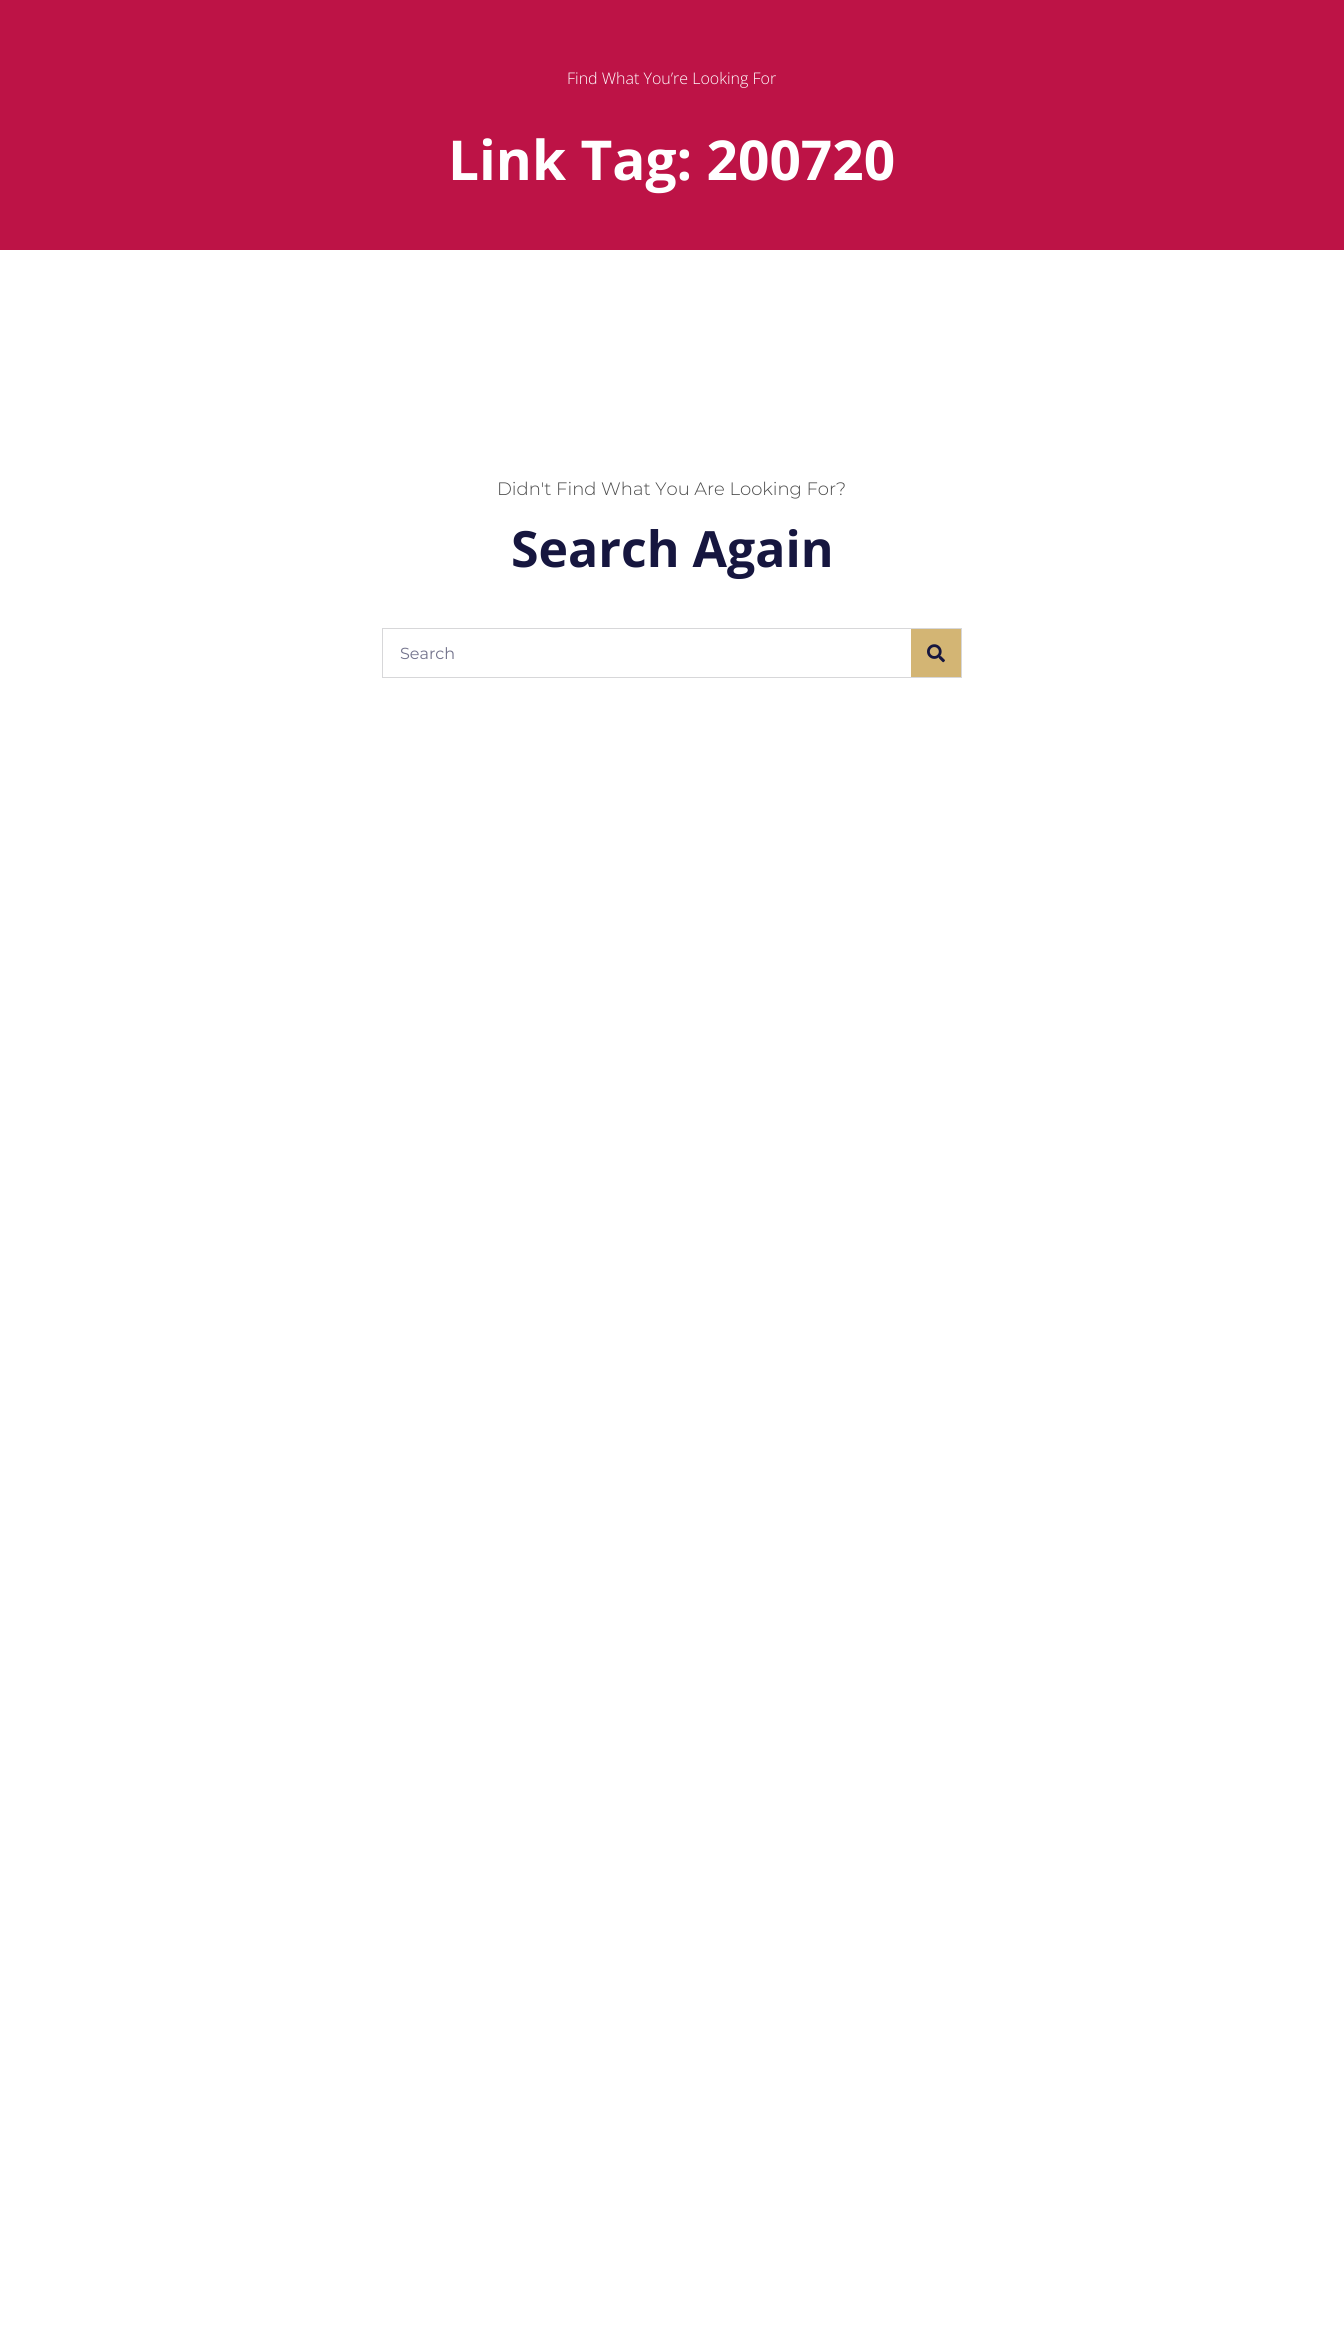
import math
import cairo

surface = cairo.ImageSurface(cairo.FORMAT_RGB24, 1344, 2347)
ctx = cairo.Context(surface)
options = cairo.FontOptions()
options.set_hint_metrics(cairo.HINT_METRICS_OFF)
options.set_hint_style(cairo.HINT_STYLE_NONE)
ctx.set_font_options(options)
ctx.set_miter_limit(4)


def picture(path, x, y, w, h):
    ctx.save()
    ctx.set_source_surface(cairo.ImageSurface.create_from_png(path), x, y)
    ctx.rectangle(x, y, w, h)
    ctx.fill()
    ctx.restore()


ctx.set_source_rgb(1, 1, 1)
ctx.paint()
ctx.set_source_rgb(0.741, 0.078, 0.275)
ctx.rectangle(0, 0, 1344, 250)
ctx.fill()
ctx.select_font_face("Open Sans Light")
ctx.set_font_size(16)
ctx.set_source_rgb(1, 1, 1)
ctx.move_to(567, 84)
ctx.show_text("Find What You’re Looking For")
ctx.select_font_face("Open Sans", cairo.FONT_SLANT_NORMAL, cairo.FONT_WEIGHT_BOLD)
ctx.set_font_size(55)
ctx.move_to(448, 180)
ctx.show_text("Link Tag: 200720")
ctx.select_font_face("Montserrat Light")
ctx.set_font_size(18)
ctx.set_source_rgb(0.29, 0.29, 0.29)
ctx.move_to(497, 495)
ctx.show_text("Didn't Find What You Are Looking For?")
ctx.select_font_face("Open Sans", cairo.FONT_SLANT_NORMAL, cairo.FONT_WEIGHT_BOLD)
ctx.set_font_size(50)
ctx.set_source_rgb(0.086, 0.086, 0.247)
ctx.move_to(511, 567)
ctx.show_text("Search Again")
ctx.rectangle(382.5, 628.5, 579, 49)
ctx.set_source_rgb(0.843, 0.843, 0.851)
ctx.set_line_width(1)
ctx.stroke()
ctx.select_font_face("Montserrat")
ctx.set_font_size(16)
ctx.set_source_rgb(0.451, 0.451, 0.549)
ctx.move_to(400, 659)
ctx.show_text("Search")
ctx.set_source_rgb(0.827, 0.71, 0.455)
ctx.rectangle(911, 629, 50, 48)
ctx.fill()
picture("img1.png", 927, 644, 18, 19)
surface.write_to_png("page.png")
